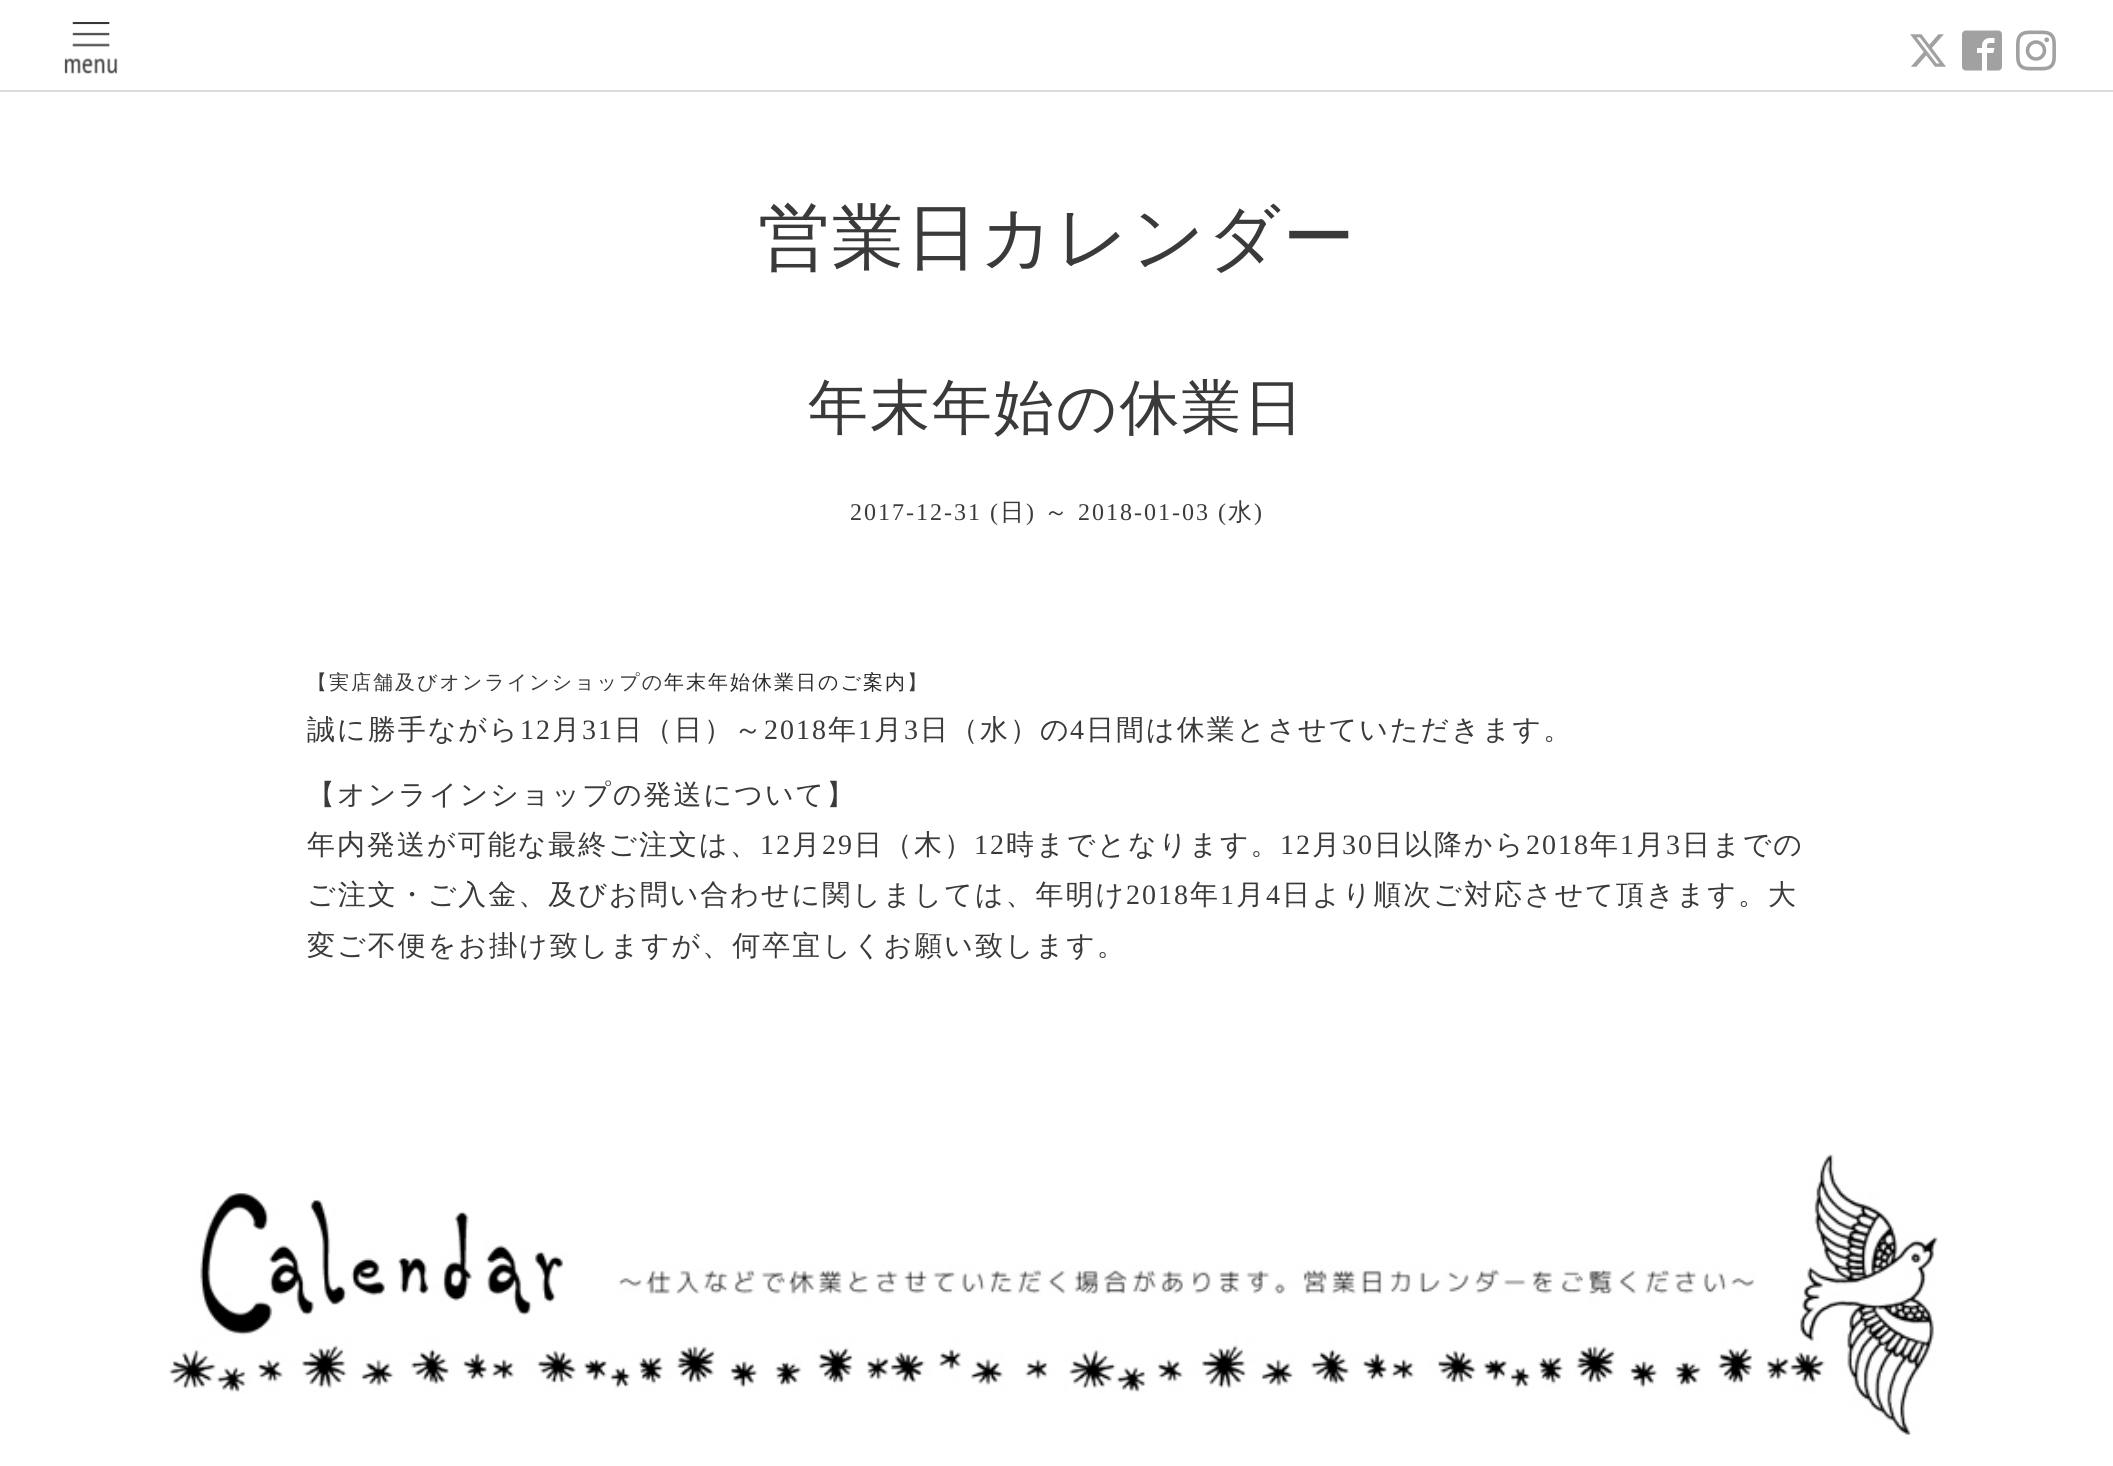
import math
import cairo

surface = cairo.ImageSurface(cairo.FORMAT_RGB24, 2113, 1466)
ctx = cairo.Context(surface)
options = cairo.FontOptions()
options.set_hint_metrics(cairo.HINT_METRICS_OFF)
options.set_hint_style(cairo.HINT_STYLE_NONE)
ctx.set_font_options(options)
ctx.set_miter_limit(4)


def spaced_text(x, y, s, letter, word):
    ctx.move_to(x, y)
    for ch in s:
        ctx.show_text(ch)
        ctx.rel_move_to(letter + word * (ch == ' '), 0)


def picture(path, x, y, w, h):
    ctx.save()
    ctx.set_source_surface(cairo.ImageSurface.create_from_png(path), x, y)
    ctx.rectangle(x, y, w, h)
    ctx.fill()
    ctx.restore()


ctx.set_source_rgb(1, 1, 1)
ctx.paint()
ctx.set_source_rgb(0.855, 0.859, 0.859)
ctx.rectangle(0, 90, 2113, 2)
ctx.fill()
picture("img1.png", 64, 22, 54, 52)
picture("img2.png", 1910, 34, 36, 33)
picture("img3.png", 1962, 30, 40, 41)
picture("img4.png", 2016, 30, 40, 41)
ctx.select_font_face("WenQuanYi Zen Hei Medium")
ctx.set_font_size(72)
ctx.set_source_rgb(0.227, 0.227, 0.227)
spaced_text(758, 262, "営業日カレンダー", 2, 0)
ctx.set_font_size(60)
spaced_text(808, 428, "年末年始の休業日", 2, 0)
ctx.select_font_face("Liberation Serif")
ctx.set_font_size(24)
spaced_text(850, 520, "2017-12-31 (", 2, 0)
ctx.select_font_face("WenQuanYi Zen Hei Medium")
spaced_text(1000, 520, "日", 2, 0)
ctx.select_font_face("Liberation Serif")
spaced_text(1026, 520, ")", 2, 0)
ctx.select_font_face("WenQuanYi Zen Hei Medium")
spaced_text(1044, 520, "～", 2, 0)
ctx.select_font_face("Liberation Serif")
spaced_text(1078, 520, "2018-01-03 (", 2, 0)
ctx.select_font_face("WenQuanYi Zen Hei Medium")
spaced_text(1228, 520, "水", 2, 0)
ctx.select_font_face("Liberation Serif")
spaced_text(1254, 520, ")", 2, 0)
ctx.select_font_face("WenQuanYi Zen Hei Medium")
ctx.set_font_size(20)
spaced_text(307, 689, "【実店舗及びオンラインショップの", 2, 0)
ctx.set_source_rgb(0.169, 0.169, 0.169)
spaced_text(664, 689, "年末年始休業日のご案内", 2, 0)
ctx.set_source_rgb(0.227, 0.227, 0.227)
spaced_text(907, 689, "】", 2, 0)
ctx.set_font_size(28)
spaced_text(307, 739, "誠に勝手ながら", 2, 0)
ctx.select_font_face("Liberation Serif")
spaced_text(520, 739, "12", 2, 0)
ctx.select_font_face("WenQuanYi Zen Hei Medium")
spaced_text(552, 739, "月", 2, 0)
ctx.select_font_face("Liberation Serif")
spaced_text(582, 739, "31", 2, 0)
ctx.select_font_face("WenQuanYi Zen Hei Medium")
spaced_text(614, 739, "日（日）～", 2, 0)
ctx.select_font_face("Liberation Serif")
spaced_text(764, 739, "2018", 2, 0)
ctx.select_font_face("WenQuanYi Zen Hei Medium")
spaced_text(828, 739, "年", 2, 0)
ctx.select_font_face("Liberation Serif")
spaced_text(858, 739, "1", 2, 0)
ctx.select_font_face("WenQuanYi Zen Hei Medium")
spaced_text(874, 739, "月", 2, 0)
ctx.select_font_face("Liberation Serif")
spaced_text(904, 739, "3", 2, 0)
ctx.select_font_face("WenQuanYi Zen Hei Medium")
spaced_text(920, 739, "日（水）の", 2, 0)
ctx.select_font_face("Liberation Serif")
spaced_text(1070, 739, "4", 2, 0)
ctx.select_font_face("WenQuanYi Zen Hei Medium")
spaced_text(1086, 739, "日間は休業とさせていただきます。", 2, 0)
spaced_text(307, 804, "【オンラインショップの発送について】", 2, 0)
spaced_text(307, 854, "年内発送が可能な最終ご注文は、", 2, 0)
ctx.select_font_face("Liberation Serif")
spaced_text(760, 854, "12", 2, 0)
ctx.select_font_face("WenQuanYi Zen Hei Medium")
spaced_text(792, 854, "月", 2, 0)
ctx.select_font_face("Liberation Serif")
spaced_text(822, 854, "29", 2, 0)
ctx.select_font_face("WenQuanYi Zen Hei Medium")
spaced_text(854, 854, "日（木）", 2, 0)
ctx.select_font_face("Liberation Serif")
spaced_text(974, 854, "12", 2, 0)
ctx.select_font_face("WenQuanYi Zen Hei Medium")
spaced_text(1006, 854, "時までとなります。", 2, 0)
ctx.select_font_face("Liberation Serif")
spaced_text(1280, 854, "12", 2, 0)
ctx.select_font_face("WenQuanYi Zen Hei Medium")
spaced_text(1312, 854, "月", 2, 0)
ctx.select_font_face("Liberation Serif")
spaced_text(1342, 854, "30", 2, 0)
ctx.select_font_face("WenQuanYi Zen Hei Medium")
spaced_text(1374, 854, "日以降から", 2, 0)
ctx.select_font_face("Liberation Serif")
spaced_text(1526, 854, "2018", 2, 0)
ctx.select_font_face("WenQuanYi Zen Hei Medium")
spaced_text(1590, 854, "年", 2, 0)
ctx.select_font_face("Liberation Serif")
spaced_text(1620, 854, "1", 2, 0)
ctx.select_font_face("WenQuanYi Zen Hei Medium")
spaced_text(1636, 854, "月", 2, 0)
ctx.select_font_face("Liberation Serif")
spaced_text(1666, 854, "3", 2, 0)
ctx.select_font_face("WenQuanYi Zen Hei Medium")
spaced_text(1682, 854, "日までの", 2, 0)
spaced_text(307, 904, "ご注文・ご入金、及びお問い合わせに関しましては、年明け", 2, 0)
ctx.select_font_face("Liberation Serif")
spaced_text(1126, 904, "2018", 2, 0)
ctx.select_font_face("WenQuanYi Zen Hei Medium")
spaced_text(1190, 904, "年", 2, 0)
ctx.select_font_face("Liberation Serif")
spaced_text(1220, 904, "1", 2, 0)
ctx.select_font_face("WenQuanYi Zen Hei Medium")
spaced_text(1236, 904, "月", 2, 0)
ctx.select_font_face("Liberation Serif")
spaced_text(1266, 904, "4", 2, 0)
ctx.select_font_face("WenQuanYi Zen Hei Medium")
spaced_text(1282, 904, "日より順次ご対応させて頂きます。大", 2, 0)
spaced_text(307, 955, "変ご不便をお掛け致しますが、何卒宜しくお願い致します。", 2, 0)
picture("img5.png", 169, 1154, 1769, 281)
surface.write_to_png("page.png")
